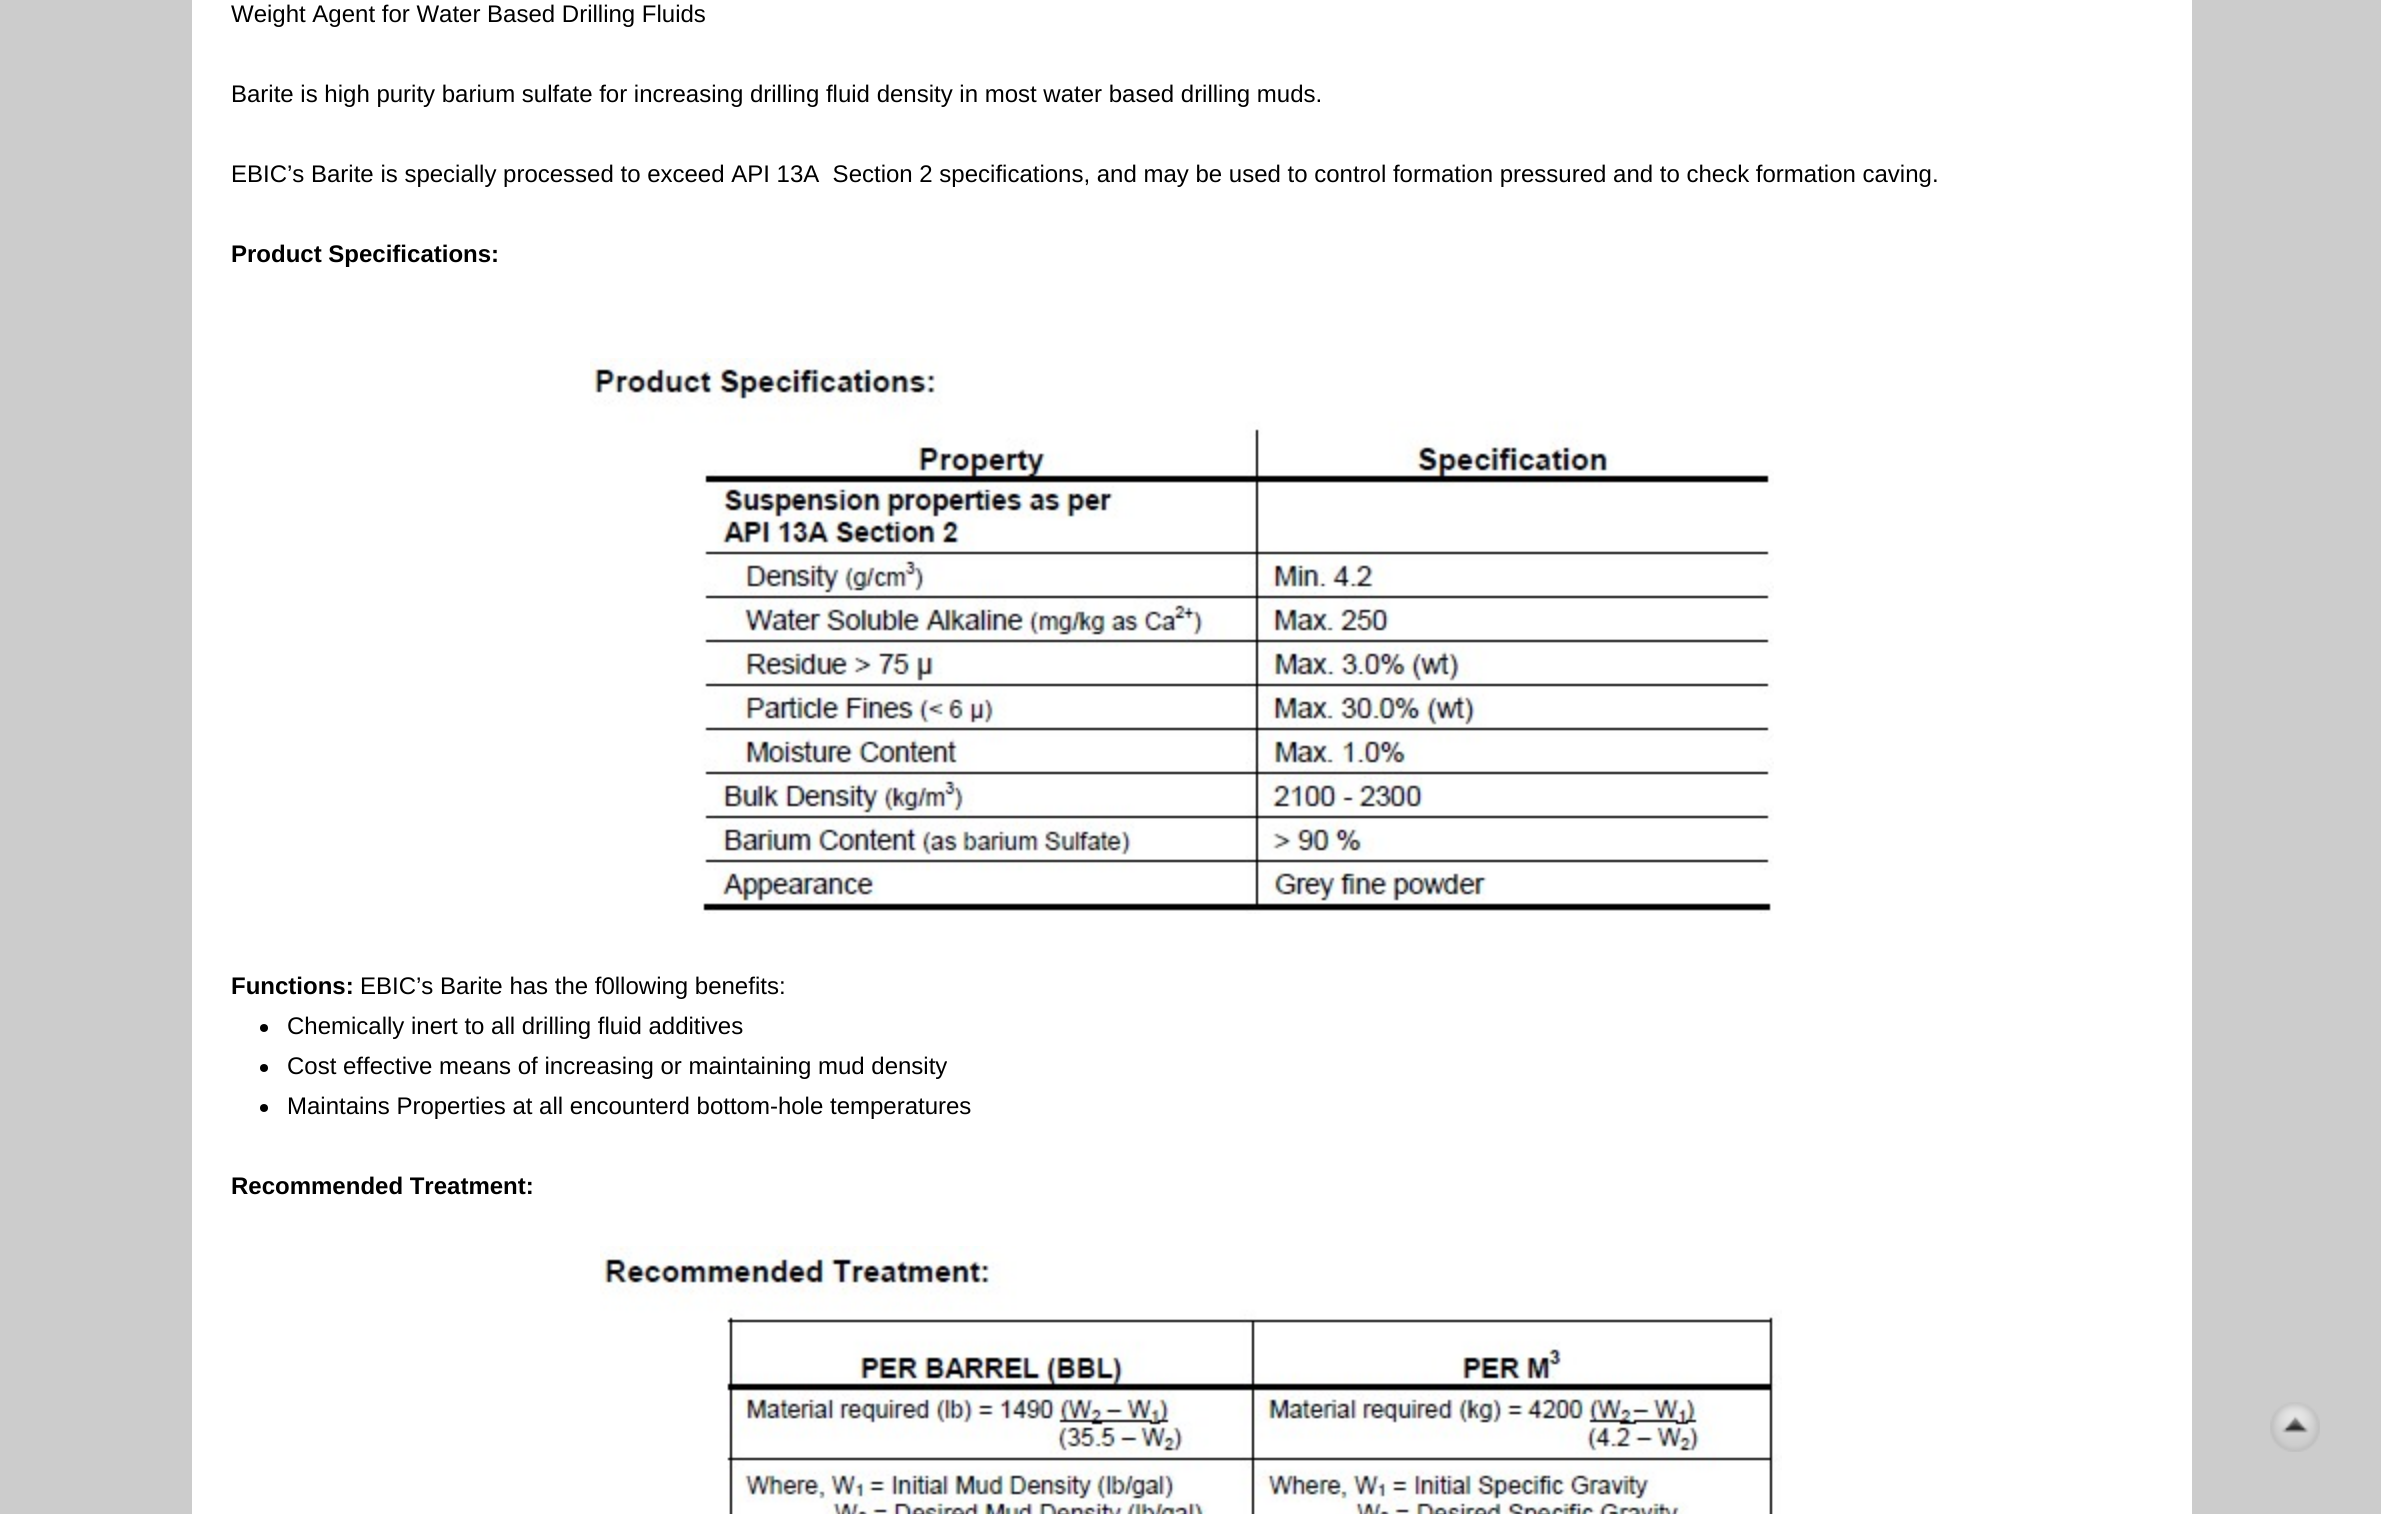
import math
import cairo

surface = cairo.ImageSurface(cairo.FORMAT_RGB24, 2381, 1514)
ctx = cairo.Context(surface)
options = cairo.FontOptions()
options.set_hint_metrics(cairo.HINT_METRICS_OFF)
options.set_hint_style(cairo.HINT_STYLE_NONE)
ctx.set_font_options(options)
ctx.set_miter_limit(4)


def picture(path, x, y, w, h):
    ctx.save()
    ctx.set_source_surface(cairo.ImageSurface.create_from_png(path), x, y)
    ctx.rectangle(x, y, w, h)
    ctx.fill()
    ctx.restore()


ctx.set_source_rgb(0.8, 0.8, 0.8)
ctx.paint()
ctx.set_source_rgb(1, 1, 1)
ctx.rectangle(192, 0, 2000, 1514)
ctx.fill()
ctx.select_font_face("Liberation Sans")
ctx.set_font_size(24)
ctx.set_source_rgb(0, 0, 0)
ctx.move_to(231, 22)
ctx.show_text("Weight Agent for Water Based Drilling Fluids")
ctx.move_to(231, 102)
ctx.show_text("Barite is high purity barium sulfate for increasing drilling fluid density in most water based drilling muds.")
ctx.move_to(231, 182)
ctx.show_text("EBIC’s Barite is specially processed to exceed API 13A  Section 2 specifications, and may be used to control formation pressured and to check formation caving.")
ctx.select_font_face("Liberation Sans", cairo.FONT_SLANT_NORMAL, cairo.FONT_WEIGHT_BOLD)
ctx.move_to(231, 262)
ctx.show_text("Product Specifications:")
picture("img1.png", 590, 358, 1184, 556)
ctx.move_to(231, 994)
ctx.show_text("Functions:")
ctx.select_font_face("Liberation Sans")
ctx.move_to(360, 994)
ctx.show_text("EBIC’s Barite has the f0llowing benefits:")
ctx.new_path()
ctx.arc(264, 1028, 4, 0, 2 * math.pi)
ctx.fill()
ctx.move_to(287, 1034)
ctx.show_text("Chemically inert to all drilling fluid additives")
ctx.new_path()
ctx.arc(264, 1068, 4, 0, 2 * math.pi)
ctx.fill()
ctx.move_to(287, 1074)
ctx.show_text("Cost effective means of increasing or maintaining mud density")
ctx.new_path()
ctx.arc(264, 1108, 4, 0, 2 * math.pi)
ctx.fill()
ctx.move_to(287, 1114)
ctx.show_text("Maintains Properties at all encounterd bottom-hole temperatures")
ctx.select_font_face("Liberation Sans", cairo.FONT_SLANT_NORMAL, cairo.FONT_WEIGHT_BOLD)
ctx.move_to(231, 1194)
ctx.show_text("Recommended Treatment:")
picture("img2.png", 600, 1246, 1182, 268)
picture("img3.png", 2270, 1402, 50, 50)
surface.write_to_png("page.png")
